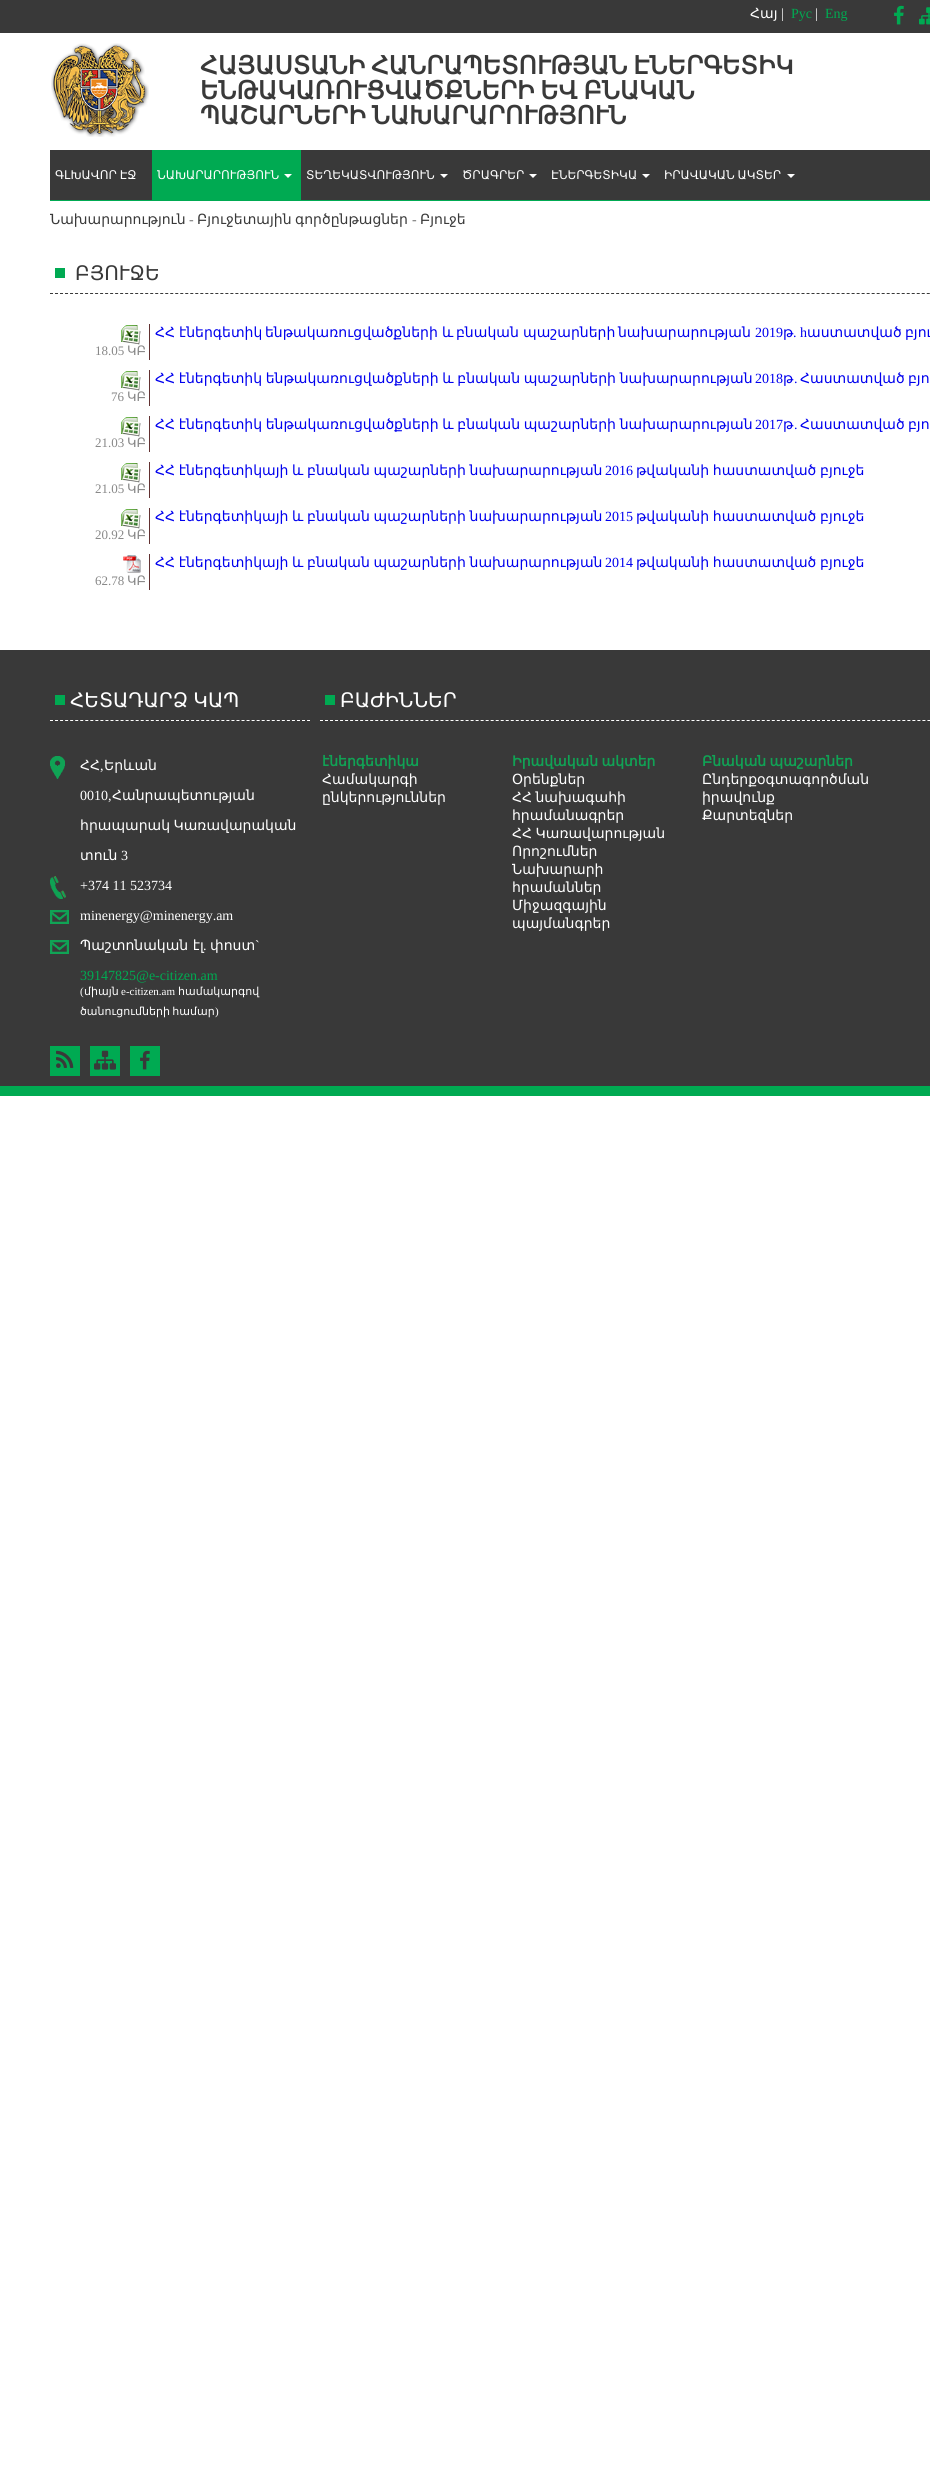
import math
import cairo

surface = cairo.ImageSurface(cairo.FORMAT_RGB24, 930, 2468)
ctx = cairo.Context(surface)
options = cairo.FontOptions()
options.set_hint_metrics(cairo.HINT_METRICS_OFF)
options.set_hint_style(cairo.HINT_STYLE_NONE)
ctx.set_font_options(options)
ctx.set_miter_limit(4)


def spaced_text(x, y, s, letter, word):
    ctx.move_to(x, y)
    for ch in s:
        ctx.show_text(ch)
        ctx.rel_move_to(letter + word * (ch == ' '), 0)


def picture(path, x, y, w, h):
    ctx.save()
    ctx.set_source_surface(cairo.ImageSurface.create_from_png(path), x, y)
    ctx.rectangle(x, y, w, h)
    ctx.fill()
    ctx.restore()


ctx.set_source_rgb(1, 1, 1)
ctx.paint()
ctx.set_source_rgb(0.224, 0.224, 0.224)
ctx.rectangle(0, 0, 930, 33)
ctx.fill()
ctx.select_font_face("DejaVu Sans")
ctx.set_font_size(14)
ctx.set_source_rgb(1, 1, 1)
ctx.move_to(750, 18)
ctx.show_text("Հայ")
ctx.select_font_face("Liberation Serif")
ctx.move_to(781, 18)
ctx.show_text("|")
ctx.set_source_rgb(0, 0.667, 0.322)
ctx.move_to(791, 18)
ctx.show_text("Рус")
ctx.set_source_rgb(1, 1, 1)
ctx.move_to(815, 18)
ctx.show_text("|")
ctx.set_source_rgb(0, 0.667, 0.322)
ctx.move_to(825, 18)
ctx.show_text("Eng")
picture("img1.png", 894, 5, 10, 20)
picture("img2.png", 919, 7, 11, 18)
picture("img3.png", 51, 43, 98, 94)
ctx.select_font_face("DejaVu Sans", cairo.FONT_SLANT_NORMAL, cairo.FONT_WEIGHT_BOLD)
ctx.set_font_size(25)
ctx.set_source_rgb(0.224, 0.224, 0.224)
spaced_text(200, 74, "ՀԱՅԱՍՏԱՆԻ ՀԱՆՐԱՊԵՏՈՒԹՅԱՆ ԷՆԵՐԳԵՏԻԿ", 0, -2)
spaced_text(200, 99, "ԵՆԹԱԿԱՌՈՒՑՎԱԾՔՆԵՐԻ ԵՎ ԲՆԱԿԱՆ", 0, -2)
spaced_text(200, 124, "ՊԱՇԱՐՆԵՐԻ ՆԱԽԱՐԱՐՈՒԹՅՈՒՆ", 0, -2)
ctx.rectangle(50, 150, 880, 50)
ctx.fill()
ctx.set_source_rgb(0, 0.667, 0.322)
ctx.rectangle(50, 200, 880, 1)
ctx.fill()
ctx.select_font_face("DejaVu Sans")
ctx.set_font_size(12)
ctx.set_source_rgb(1, 1, 1)
spaced_text(55, 179, "ԳԼԽԱՎՈՐ ԷՋ", 0, -1)
ctx.set_source_rgb(0, 0.667, 0.322)
ctx.rectangle(152, 150, 149, 50)
ctx.fill()
ctx.set_source_rgb(1, 1, 1)
ctx.move_to(157, 179)
ctx.show_text("ՆԱԽԱՐԱՐՈՒԹՅՈՒՆ")
ctx.new_path()
ctx.move_to(284, 174)
ctx.line_to(292, 174)
ctx.line_to(288, 178)
ctx.close_path()
ctx.fill()
ctx.move_to(306, 179)
ctx.show_text("ՏԵՂԵԿԱՏՎՈՒԹՅՈՒՆ")
ctx.new_path()
ctx.move_to(440, 174)
ctx.line_to(448, 174)
ctx.line_to(444, 178)
ctx.close_path()
ctx.fill()
ctx.move_to(462, 179)
ctx.show_text("ԾՐԱԳՐԵՐ")
ctx.new_path()
ctx.move_to(529, 174)
ctx.line_to(537, 174)
ctx.line_to(533, 178)
ctx.close_path()
ctx.fill()
ctx.move_to(551, 179)
ctx.show_text("ԷՆԵՐԳԵՏԻԿԱ")
ctx.new_path()
ctx.move_to(642, 174)
ctx.line_to(650, 174)
ctx.line_to(646, 178)
ctx.close_path()
ctx.fill()
spaced_text(664, 179, "ԻՐԱՎԱԿԱՆ ԱԿՏԵՐ", 0, -1)
ctx.new_path()
ctx.move_to(787, 174)
ctx.line_to(795, 174)
ctx.line_to(791, 178)
ctx.close_path()
ctx.fill()
ctx.set_font_size(14)
ctx.set_source_rgb(0.224, 0.224, 0.224)
ctx.move_to(50, 224)
ctx.show_text("Նախարարություն")
ctx.select_font_face("Liberation Serif", cairo.FONT_SLANT_NORMAL, cairo.FONT_WEIGHT_BOLD)
ctx.set_source_rgb(0.502, 0.502, 0.502)
ctx.move_to(189, 224)
ctx.show_text("-")
ctx.select_font_face("DejaVu Sans")
ctx.set_source_rgb(0.224, 0.224, 0.224)
spaced_text(197, 224, "Բյուջետային գործընթացներ", 0, -1)
ctx.select_font_face("Liberation Serif", cairo.FONT_SLANT_NORMAL, cairo.FONT_WEIGHT_BOLD)
ctx.set_source_rgb(0.502, 0.502, 0.502)
ctx.move_to(412, 224)
ctx.show_text("-")
ctx.select_font_face("DejaVu Sans")
ctx.set_source_rgb(0.224, 0.224, 0.224)
ctx.move_to(420, 224)
ctx.show_text("Բյուջե")
ctx.new_path()
ctx.move_to(50, 293.5)
ctx.line_to(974, 293.5)
ctx.set_line_width(1)
ctx.set_dash([3, 2.01])
ctx.stroke()
ctx.set_source_rgb(0, 0.667, 0.322)
ctx.rectangle(55, 268, 10, 10)
ctx.fill()
ctx.set_font_size(20)
ctx.set_source_rgb(0.224, 0.224, 0.224)
ctx.move_to(75, 280)
ctx.show_text("ԲՅՈՒՋԵ")
ctx.set_font_size(14)
ctx.set_source_rgb(0, 0, 0.933)
ctx.move_to(155, 337)
ctx.show_text("ՀՀ")
ctx.move_to(179, 337)
ctx.show_text("էներգետիկ")
ctx.move_to(265, 337)
ctx.show_text("ենթակառուցվածքների")
ctx.move_to(442, 337)
ctx.show_text("և")
ctx.move_to(456, 337)
ctx.show_text("բնական")
ctx.move_to(523, 337)
ctx.show_text("պաշարների")
ctx.move_to(618, 337)
ctx.show_text("նախարարության")
ctx.select_font_face("Liberation Serif")
ctx.move_to(755, 337)
ctx.show_text("2019")
ctx.select_font_face("DejaVu Sans")
ctx.move_to(783, 337)
ctx.show_text("թ")
ctx.select_font_face("Liberation Serif")
ctx.move_to(793, 337)
ctx.show_text(". h")
ctx.select_font_face("DejaVu Sans")
ctx.move_to(807, 337)
ctx.show_text("աստատված")
ctx.move_to(905, 337)
ctx.show_text("բյու")
picture("img4.png", 121, 325, 20, 20)
ctx.set_source_rgb(0.384, 0.192, 0.192)
ctx.rectangle(149, 324, 1, 36)
ctx.fill()
ctx.select_font_face("Liberation Serif")
ctx.set_font_size(13)
ctx.set_source_rgb(0.533, 0.533, 0.533)
ctx.move_to(95, 355)
ctx.show_text("18.05")
ctx.select_font_face("DejaVu Sans")
ctx.move_to(127, 355)
ctx.show_text("ԿԲ")
ctx.set_font_size(14)
ctx.set_source_rgb(0, 0, 0.933)
spaced_text(155, 383, "ՀՀ էներգետիկ ենթակառուցվածքների և բնական պաշարների նախարարության", 0, -0.75)
ctx.select_font_face("Liberation Serif")
ctx.move_to(755, 383)
ctx.show_text("2018")
ctx.select_font_face("DejaVu Sans")
ctx.move_to(783, 383)
ctx.show_text("թ")
ctx.select_font_face("Liberation Serif")
ctx.move_to(794, 383)
ctx.show_text(".")
ctx.select_font_face("DejaVu Sans")
ctx.move_to(800, 383)
ctx.show_text("Հաստատված")
ctx.move_to(908, 383)
ctx.show_text("բյո")
picture("img4.png", 121, 371, 20, 20)
ctx.set_source_rgb(0.384, 0.192, 0.192)
ctx.rectangle(149, 370, 1, 36)
ctx.fill()
ctx.select_font_face("Liberation Serif")
ctx.set_font_size(13)
ctx.set_source_rgb(0.533, 0.533, 0.533)
ctx.move_to(111, 401)
ctx.show_text("76")
ctx.select_font_face("DejaVu Sans")
ctx.move_to(127, 401)
ctx.show_text("ԿԲ")
ctx.set_font_size(14)
ctx.set_source_rgb(0, 0, 0.933)
spaced_text(155, 429, "ՀՀ էներգետիկ ենթակառուցվածքների և բնական պաշարների նախարարության", 0, -0.75)
ctx.select_font_face("Liberation Serif")
ctx.move_to(755, 429)
ctx.show_text("2017")
ctx.select_font_face("DejaVu Sans")
ctx.move_to(783, 429)
ctx.show_text("թ")
ctx.select_font_face("Liberation Serif")
ctx.move_to(794, 429)
ctx.show_text(".")
ctx.select_font_face("DejaVu Sans")
ctx.move_to(800, 429)
ctx.show_text("Հաստատված")
ctx.move_to(908, 429)
ctx.show_text("բյո")
picture("img4.png", 121, 417, 20, 20)
ctx.set_source_rgb(0.384, 0.192, 0.192)
ctx.rectangle(149, 416, 1, 36)
ctx.fill()
ctx.select_font_face("Liberation Serif")
ctx.set_font_size(13)
ctx.set_source_rgb(0.533, 0.533, 0.533)
ctx.move_to(95, 447)
ctx.show_text("21.03")
ctx.select_font_face("DejaVu Sans")
ctx.move_to(127, 447)
ctx.show_text("ԿԲ")
ctx.set_font_size(14)
ctx.set_source_rgb(0, 0, 0.933)
spaced_text(155, 475, "ՀՀ էներգետիկայի և բնական պաշարների նախարարության", 0, -0.75)
ctx.select_font_face("Liberation Serif")
ctx.move_to(605, 475)
ctx.show_text("2016")
ctx.select_font_face("DejaVu Sans")
spaced_text(636, 475, "թվականի հաստատված բյուջե", 0, -0.75)
picture("img4.png", 121, 463, 20, 20)
ctx.set_source_rgb(0.384, 0.192, 0.192)
ctx.rectangle(149, 462, 1, 36)
ctx.fill()
ctx.select_font_face("Liberation Serif")
ctx.set_font_size(13)
ctx.set_source_rgb(0.533, 0.533, 0.533)
ctx.move_to(95, 493)
ctx.show_text("21.05")
ctx.select_font_face("DejaVu Sans")
ctx.move_to(127, 493)
ctx.show_text("ԿԲ")
ctx.set_font_size(14)
ctx.set_source_rgb(0, 0, 0.933)
spaced_text(155, 521, "ՀՀ էներգետիկայի և բնական պաշարների նախարարության", 0, -0.75)
ctx.select_font_face("Liberation Serif")
ctx.move_to(605, 521)
ctx.show_text("2015")
ctx.select_font_face("DejaVu Sans")
spaced_text(636, 521, "թվականի հաստատված բյուջե", 0, -0.75)
picture("img4.png", 121, 509, 20, 20)
ctx.set_source_rgb(0.384, 0.192, 0.192)
ctx.rectangle(149, 508, 1, 36)
ctx.fill()
ctx.select_font_face("Liberation Serif")
ctx.set_font_size(13)
ctx.set_source_rgb(0.533, 0.533, 0.533)
ctx.move_to(95, 539)
ctx.show_text("20.92")
ctx.select_font_face("DejaVu Sans")
ctx.move_to(127, 539)
ctx.show_text("ԿԲ")
ctx.set_font_size(14)
ctx.set_source_rgb(0, 0, 0.933)
spaced_text(155, 567, "ՀՀ էներգետիկայի և բնական պաշարների նախարարության", 0, -0.75)
ctx.select_font_face("Liberation Serif")
ctx.move_to(605, 567)
ctx.show_text("2014")
ctx.select_font_face("DejaVu Sans")
spaced_text(636, 567, "թվականի հաստատված բյուջե", 0, -0.75)
picture("img5.png", 123, 555, 18, 18)
ctx.set_source_rgb(0.384, 0.192, 0.192)
ctx.rectangle(149, 554, 1, 36)
ctx.fill()
ctx.select_font_face("Liberation Serif")
ctx.set_font_size(13)
ctx.set_source_rgb(0.533, 0.533, 0.533)
ctx.move_to(95, 585)
ctx.show_text("62.78")
ctx.select_font_face("DejaVu Sans")
ctx.move_to(127, 585)
ctx.show_text("ԿԲ")
ctx.set_source_rgb(0.224, 0.224, 0.224)
ctx.rectangle(0, 650, 930, 436)
ctx.fill()
ctx.set_source_rgb(0, 0.667, 0.322)
ctx.rectangle(0, 1086, 930, 10)
ctx.fill()
ctx.new_path()
ctx.move_to(50, 720.5)
ctx.line_to(310, 720.5)
ctx.set_source_rgb(1, 1, 1)
ctx.set_dash([3, 2.04])
ctx.stroke()
ctx.set_source_rgb(0, 0.667, 0.322)
ctx.rectangle(55, 695, 10, 10)
ctx.fill()
ctx.set_font_size(20)
ctx.set_source_rgb(1, 1, 1)
spaced_text(70, 707, "ՀԵՏԱԴԱՐՁ ԿԱՊ", 0, -1)
picture("img6.png", 50, 756, 15, 23)
ctx.set_font_size(14)
ctx.move_to(80, 770)
ctx.show_text("ՀՀ")
ctx.select_font_face("Liberation Serif")
ctx.move_to(100, 770)
ctx.show_text(",")
ctx.select_font_face("DejaVu Sans")
ctx.move_to(104, 770)
ctx.show_text("Երևան")
ctx.select_font_face("Liberation Serif")
ctx.move_to(80, 800)
ctx.show_text("0010,")
ctx.select_font_face("DejaVu Sans")
ctx.move_to(112, 800)
ctx.show_text("Հանրապետության")
spaced_text(80, 830, "հրապարակ Կառավարական", 0, -1)
ctx.move_to(80, 860)
ctx.show_text("տուն")
ctx.select_font_face("Liberation Serif")
ctx.move_to(121, 860)
ctx.show_text("3")
picture("img7.png", 50, 876, 16, 23)
ctx.move_to(80, 890)
ctx.show_text("+374 11 523734")
picture("img8.png", 50, 910, 19, 14)
ctx.move_to(80, 920)
ctx.show_text("minenergy@minenergy.am")
picture("img8.png", 50, 940, 19, 14)
ctx.select_font_face("DejaVu Sans")
ctx.move_to(80, 950)
ctx.show_text("Պաշտոնական էլ")
ctx.move_to(210, 950)
ctx.show_text("փոստ")
ctx.select_font_face("Liberation Serif")
ctx.move_to(255, 950)
ctx.show_text("`")
ctx.move_to(203, 950)
ctx.show_text(".")
ctx.set_source_rgb(0, 0.667, 0.322)
ctx.move_to(80, 980)
ctx.show_text("39147825@e-citizen.am")
ctx.set_font_size(11)
ctx.set_source_rgb(1, 1, 1)
ctx.move_to(80, 995)
ctx.show_text("(")
ctx.select_font_face("DejaVu Sans")
ctx.move_to(84, 995)
ctx.show_text("միայն")
ctx.select_font_face("Liberation Serif")
ctx.move_to(121, 995)
ctx.show_text("e-citizen.am")
ctx.select_font_face("DejaVu Sans")
ctx.move_to(178, 995)
ctx.show_text("համակարգով")
spaced_text(80, 1015, "ծանուցումների համար", 0, -1)
ctx.select_font_face("Liberation Serif")
ctx.move_to(215, 1015)
ctx.show_text(")")
ctx.set_source_rgb(0, 0.667, 0.322)
ctx.rectangle(50, 1046, 30, 30)
ctx.fill()
picture("img9.png", 56, 1050, 18, 18)
ctx.rectangle(90, 1046, 30, 30)
ctx.fill()
picture("img10.png", 94, 1050, 22, 20)
ctx.rectangle(130, 1046, 30, 30)
ctx.fill()
picture("img11.png", 140, 1050, 10, 20)
ctx.new_path()
ctx.move_to(320, 720.5)
ctx.line_to(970, 720.5)
ctx.set_source_rgb(1, 1, 1)
ctx.set_dash([3, 2.02])
ctx.stroke()
ctx.set_source_rgb(0, 0.667, 0.322)
ctx.rectangle(325, 695, 10, 10)
ctx.fill()
ctx.select_font_face("DejaVu Sans")
ctx.set_font_size(20)
ctx.set_source_rgb(1, 1, 1)
ctx.move_to(340, 707)
ctx.show_text("ԲԱԺԻՆՆԵՐ")
ctx.select_font_face("DejaVu Sans", cairo.FONT_SLANT_NORMAL, cairo.FONT_WEIGHT_BOLD)
ctx.set_font_size(14)
ctx.set_source_rgb(0.063, 0.639, 0.333)
ctx.move_to(322, 766)
ctx.show_text("էներգետիկա")
ctx.select_font_face("DejaVu Sans")
ctx.set_source_rgb(1, 1, 1)
ctx.move_to(322, 784)
ctx.show_text("Համակարգի")
ctx.move_to(322, 802)
ctx.show_text("ընկերություններ")
ctx.select_font_face("DejaVu Sans", cairo.FONT_SLANT_NORMAL, cairo.FONT_WEIGHT_BOLD)
ctx.set_source_rgb(0.063, 0.639, 0.333)
spaced_text(512, 766, "Իրավական ակտեր", 0, -1)
ctx.select_font_face("DejaVu Sans")
ctx.set_source_rgb(1, 1, 1)
ctx.move_to(512, 784)
ctx.show_text("Օրենքներ")
spaced_text(512, 802, "ՀՀ նախագահի", 0, -1)
ctx.move_to(512, 820)
ctx.show_text("հրամանագրեր")
spaced_text(512, 838, "ՀՀ Կառավարության", 0, -1)
ctx.move_to(512, 856)
ctx.show_text("Որոշումներ")
ctx.move_to(512, 874)
ctx.show_text("Նախարարի")
ctx.move_to(512, 892)
ctx.show_text("հրամաններ")
ctx.move_to(512, 910)
ctx.show_text("Միջազգային")
ctx.move_to(512, 928)
ctx.show_text("պայմանգրեր")
ctx.select_font_face("DejaVu Sans", cairo.FONT_SLANT_NORMAL, cairo.FONT_WEIGHT_BOLD)
ctx.set_source_rgb(0.063, 0.639, 0.333)
spaced_text(702, 766, "Բնական պաշարներ", 0, -1)
ctx.select_font_face("DejaVu Sans")
ctx.set_source_rgb(1, 1, 1)
ctx.move_to(702, 784)
ctx.show_text("Ընդերքօգտագործման")
ctx.move_to(702, 802)
ctx.show_text("իրավունք")
ctx.move_to(702, 820)
ctx.show_text("Քարտեզներ")
surface.write_to_png("page.png")
